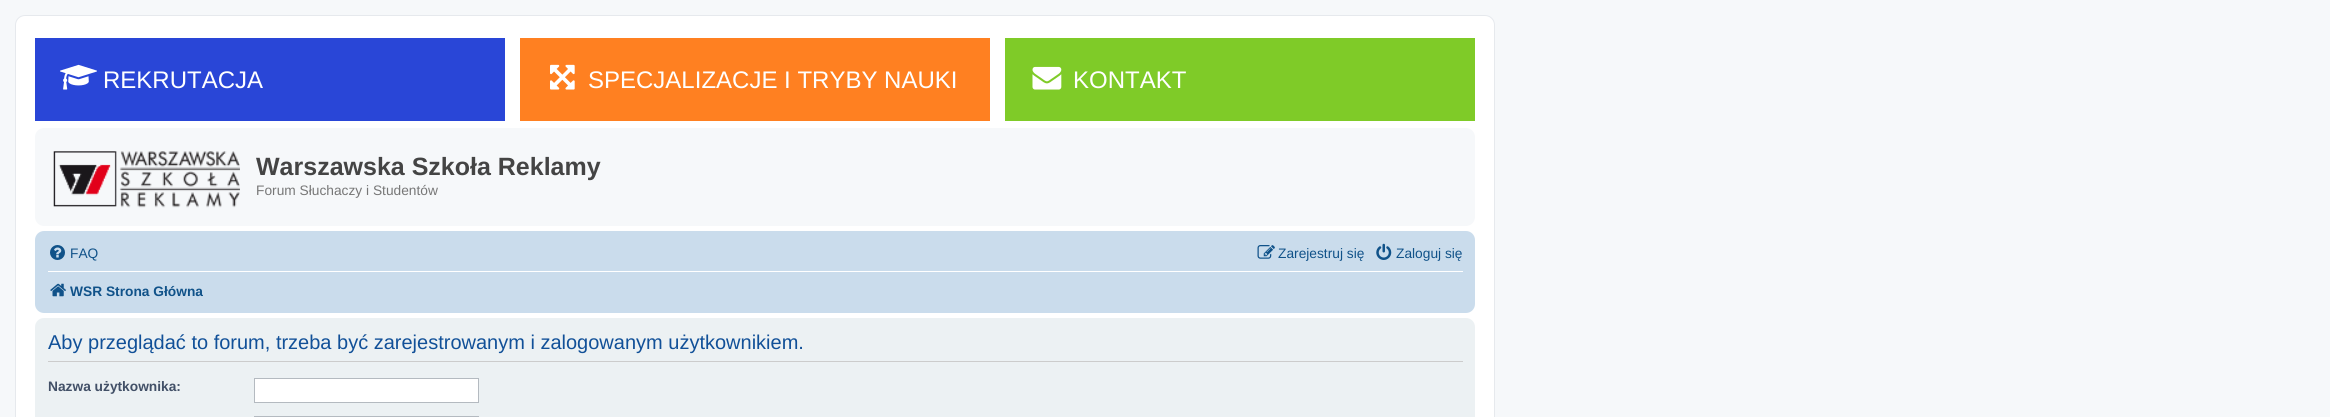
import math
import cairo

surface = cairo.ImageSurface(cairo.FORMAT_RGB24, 2330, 417)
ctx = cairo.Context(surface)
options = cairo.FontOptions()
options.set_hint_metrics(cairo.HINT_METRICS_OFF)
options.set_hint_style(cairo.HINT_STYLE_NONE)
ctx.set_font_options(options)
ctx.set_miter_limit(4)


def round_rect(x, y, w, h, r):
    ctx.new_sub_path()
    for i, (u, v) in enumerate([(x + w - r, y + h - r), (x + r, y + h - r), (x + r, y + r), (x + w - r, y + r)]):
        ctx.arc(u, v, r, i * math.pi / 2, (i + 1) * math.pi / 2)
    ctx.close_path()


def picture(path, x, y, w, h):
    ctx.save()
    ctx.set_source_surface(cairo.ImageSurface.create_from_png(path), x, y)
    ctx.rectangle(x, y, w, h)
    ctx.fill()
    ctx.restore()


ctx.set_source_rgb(0.961, 0.969, 0.98)
ctx.paint()
ctx.set_source_rgb(1, 1, 1)
round_rect(15.5, 15.5, 1479, 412, 9.5)
ctx.fill_preserve()
ctx.set_source_rgb(0.902, 0.914, 0.929)
ctx.set_line_width(1)
ctx.stroke()
ctx.set_source_rgb(0.161, 0.275, 0.843)
ctx.rectangle(35, 38, 470, 83)
ctx.fill()
picture("img1.png", 60, 64, 37, 26)
ctx.select_font_face("Liberation Sans")
ctx.set_font_size(24)
ctx.set_source_rgb(1, 1, 1)
ctx.move_to(103, 88)
ctx.show_text("REKRUTACJA")
ctx.set_source_rgb(1, 0.502, 0.129)
ctx.rectangle(520, 38, 470, 83)
ctx.fill()
picture("img2.png", 550, 64, 25, 26)
ctx.set_source_rgb(1, 1, 1)
ctx.move_to(588, 88)
ctx.show_text("SPECJALIZACJE I TRYBY NAUKI")
ctx.set_source_rgb(0.498, 0.796, 0.157)
ctx.rectangle(1005, 38, 470, 83)
ctx.fill()
picture("img3.png", 1032, 66, 30, 24)
ctx.set_source_rgb(1, 1, 1)
ctx.move_to(1073, 88)
ctx.show_text("KONTAKT")
ctx.set_source_rgb(0.961, 0.969, 0.98)
round_rect(35, 128, 1440, 98, 9)
ctx.fill()
picture("img4.png", 53, 151, 187, 57)
ctx.select_font_face("Liberation Sans", cairo.FONT_SLANT_NORMAL, cairo.FONT_WEIGHT_BOLD)
ctx.set_font_size(25)
ctx.set_source_rgb(0.267, 0.267, 0.267)
ctx.move_to(256, 175)
ctx.show_text("Warszawska Szkoła Reklamy")
ctx.select_font_face("Liberation Sans")
ctx.set_font_size(13.75)
ctx.set_source_rgb(0.467, 0.467, 0.467)
ctx.move_to(256, 195)
ctx.show_text("Forum Słuchaczy i Studentów")
ctx.set_source_rgb(0.792, 0.863, 0.922)
round_rect(35, 231, 1440, 82, 9)
ctx.fill()
picture("img5.png", 50, 245, 15, 15)
ctx.set_source_rgb(0.063, 0.322, 0.537)
ctx.move_to(70, 258)
ctx.show_text("FAQ")
picture("img6.png", 1257, 245, 18, 14)
ctx.move_to(1278, 258)
ctx.show_text("Zarejestruj się")
picture("img7.png", 1376, 243, 16, 17)
ctx.move_to(1396, 258)
ctx.show_text("Zaloguj się")
ctx.set_source_rgb(1, 1, 1)
ctx.rectangle(48, 271, 1415, 1)
ctx.fill()
picture("img8.png", 50, 283, 16, 14)
ctx.select_font_face("Liberation Sans", cairo.FONT_SLANT_NORMAL, cairo.FONT_WEIGHT_BOLD)
ctx.set_source_rgb(0.063, 0.322, 0.537)
ctx.move_to(70, 296)
ctx.show_text("WSR Strona Główna")
ctx.set_source_rgb(0.925, 0.945, 0.953)
round_rect(35, 318, 1440, 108, 9)
ctx.fill()
ctx.set_source_rgb(0.8, 0.8, 0.8)
ctx.rectangle(48, 361, 1415, 1)
ctx.fill()
ctx.select_font_face("Liberation Sans")
ctx.set_font_size(20)
ctx.set_source_rgb(0.067, 0.314, 0.596)
ctx.move_to(48, 349)
ctx.show_text("Aby przeglądać to forum, trzeba być zarejestrowanym i zalogowanym użytkownikiem.")
ctx.select_font_face("Liberation Sans", cairo.FONT_SLANT_NORMAL, cairo.FONT_WEIGHT_BOLD)
ctx.set_font_size(13.75)
ctx.set_source_rgb(0.259, 0.314, 0.404)
ctx.move_to(48, 391)
ctx.show_text("Nazwa użytkownika:")
ctx.set_source_rgb(1, 1, 1)
ctx.rectangle(254.5, 378.5, 224, 24)
ctx.fill_preserve()
ctx.set_source_rgb(0.706, 0.729, 0.753)
ctx.stroke()
ctx.rectangle(254.5, 416.5, 224, 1)
ctx.stroke()
surface.write_to_png("page.png")
